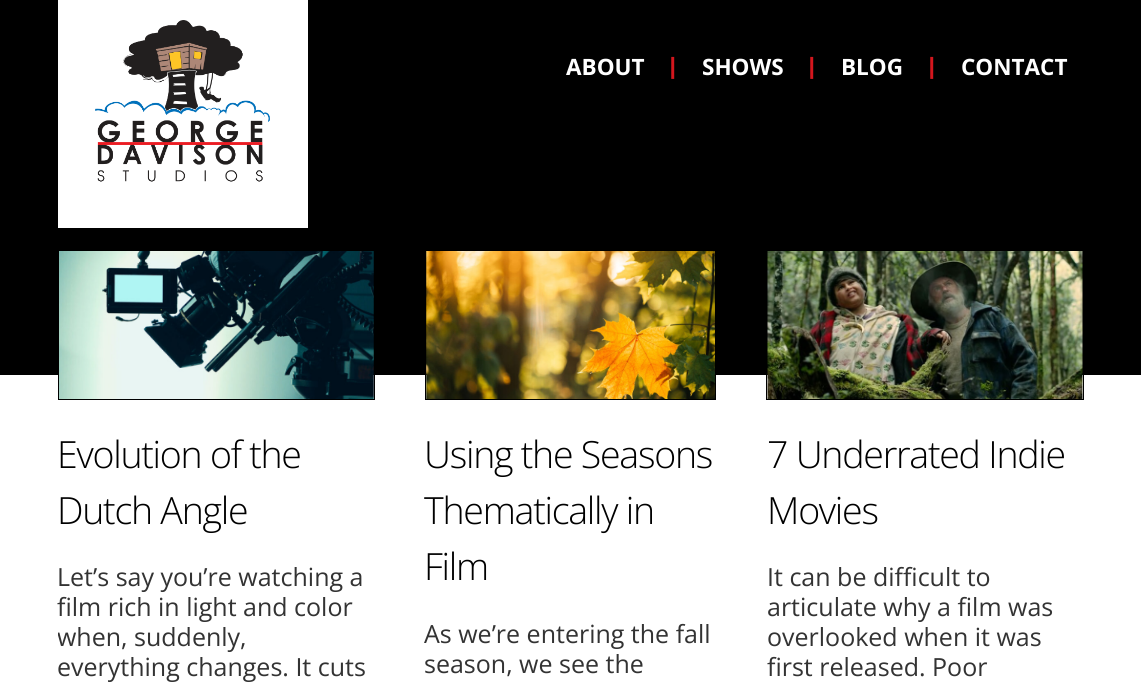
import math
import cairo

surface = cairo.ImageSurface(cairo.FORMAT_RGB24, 1141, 688)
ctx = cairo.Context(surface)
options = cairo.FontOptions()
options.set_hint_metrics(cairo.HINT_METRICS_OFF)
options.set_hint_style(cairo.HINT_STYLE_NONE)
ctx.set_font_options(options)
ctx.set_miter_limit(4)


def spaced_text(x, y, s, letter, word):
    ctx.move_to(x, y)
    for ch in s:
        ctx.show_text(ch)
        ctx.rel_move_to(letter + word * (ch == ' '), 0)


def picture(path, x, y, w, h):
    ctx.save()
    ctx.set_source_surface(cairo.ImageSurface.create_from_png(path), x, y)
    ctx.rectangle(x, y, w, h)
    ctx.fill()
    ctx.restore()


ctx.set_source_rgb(1, 1, 1)
ctx.paint()
ctx.set_source_rgb(0, 0, 0)
ctx.rectangle(0, 0, 1141, 375)
ctx.fill()
ctx.set_source_rgb(1, 1, 1)
ctx.rectangle(58, 0, 250, 228)
ctx.fill()
picture("img1.png", 95, 20, 175, 162)
ctx.select_font_face("Open Sans", cairo.FONT_SLANT_NORMAL, cairo.FONT_WEIGHT_BOLD)
ctx.set_font_size(22.5)
ctx.move_to(566, 75)
ctx.show_text("ABOUT")
ctx.select_font_face("Open Sans ExtraBold")
ctx.set_source_rgb(0.827, 0.086, 0.114)
ctx.move_to(667, 74)
ctx.show_text("|")
ctx.select_font_face("Open Sans", cairo.FONT_SLANT_NORMAL, cairo.FONT_WEIGHT_BOLD)
ctx.set_source_rgb(1, 1, 1)
ctx.move_to(702, 75)
ctx.show_text("SHOWS")
ctx.select_font_face("Open Sans ExtraBold")
ctx.set_source_rgb(0.827, 0.086, 0.114)
ctx.move_to(806, 74)
ctx.show_text("|")
ctx.select_font_face("Open Sans", cairo.FONT_SLANT_NORMAL, cairo.FONT_WEIGHT_BOLD)
ctx.set_source_rgb(1, 1, 1)
ctx.move_to(841, 75)
ctx.show_text("BLOG")
ctx.select_font_face("Open Sans ExtraBold")
ctx.set_source_rgb(0.827, 0.086, 0.114)
ctx.move_to(926, 74)
ctx.show_text("|")
ctx.select_font_face("Open Sans", cairo.FONT_SLANT_NORMAL, cairo.FONT_WEIGHT_BOLD)
ctx.set_source_rgb(1, 1, 1)
ctx.move_to(961, 75)
ctx.show_text("CONTACT")
picture("img2.png", 59, 251, 315, 148)
ctx.rectangle(58.5, 250.5, 316, 149)
ctx.set_source_rgb(0, 0, 0)
ctx.set_line_width(1)
ctx.stroke()
ctx.select_font_face("Open Sans Light")
ctx.set_font_size(37.5)
spaced_text(57, 468, "Evolution of the", -1.25, 0)
spaced_text(57, 524, "Dutch Angle", -1.25, 0)
ctx.select_font_face("Open Sans")
ctx.set_font_size(25)
ctx.set_source_rgb(0.2, 0.2, 0.2)
ctx.move_to(57, 586)
ctx.show_text("Let’s say you’re watching a")
ctx.move_to(57, 616)
ctx.show_text("film rich in light and color")
ctx.save()
ctx.rectangle(58, 250, 1026, 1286)
ctx.clip()
ctx.move_to(57, 646)
ctx.show_text("when, suddenly,")
ctx.restore()
ctx.move_to(57, 676)
ctx.show_text("everything changes. It cuts")
picture("img3.png", 426, 251, 289, 148)
ctx.rectangle(425.5, 250.5, 290, 149)
ctx.set_source_rgb(0, 0, 0)
ctx.stroke()
ctx.select_font_face("Open Sans Light")
ctx.set_font_size(37.5)
spaced_text(424, 468, "Using the Seasons", -1.25, 0)
spaced_text(424, 524, "Thematically in", -1.25, 0)
spaced_text(424, 580, "Film", -1.25, 0)
ctx.select_font_face("Open Sans")
ctx.set_font_size(25)
ctx.set_source_rgb(0.2, 0.2, 0.2)
ctx.move_to(424, 643)
ctx.show_text("As we’re entering the fall")
ctx.move_to(424, 673)
ctx.show_text("season, we see the")
picture("img4.png", 767, 251, 316, 148)
ctx.rectangle(766.5, 250.5, 317, 149)
ctx.set_source_rgb(0, 0, 0)
ctx.stroke()
ctx.select_font_face("Open Sans Light")
ctx.set_font_size(37.5)
spaced_text(767, 468, "7 Underrated Indie", -1.25, 0)
spaced_text(767, 524, "Movies", -1.25, 0)
ctx.select_font_face("Open Sans")
ctx.set_font_size(25)
ctx.set_source_rgb(0.2, 0.2, 0.2)
ctx.move_to(767, 586)
ctx.show_text("It can be difficult to")
ctx.move_to(767, 616)
ctx.show_text("articulate why a film was")
ctx.move_to(767, 646)
ctx.show_text("overlooked when it was")
ctx.move_to(767, 676)
ctx.show_text("first released. Poor")
surface.write_to_png("page.png")
